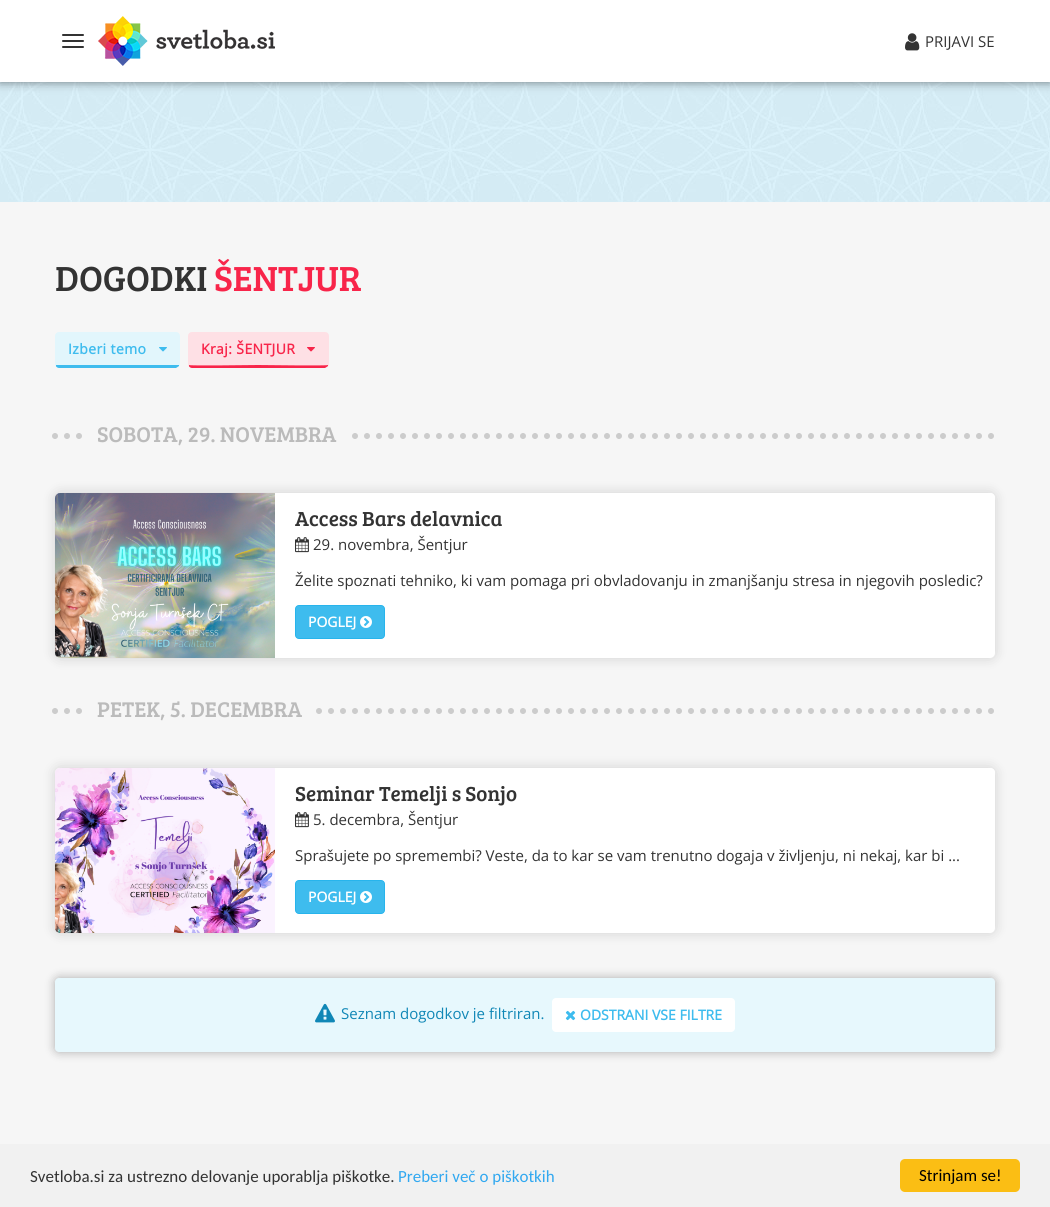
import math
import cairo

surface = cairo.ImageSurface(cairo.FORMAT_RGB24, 1050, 1207)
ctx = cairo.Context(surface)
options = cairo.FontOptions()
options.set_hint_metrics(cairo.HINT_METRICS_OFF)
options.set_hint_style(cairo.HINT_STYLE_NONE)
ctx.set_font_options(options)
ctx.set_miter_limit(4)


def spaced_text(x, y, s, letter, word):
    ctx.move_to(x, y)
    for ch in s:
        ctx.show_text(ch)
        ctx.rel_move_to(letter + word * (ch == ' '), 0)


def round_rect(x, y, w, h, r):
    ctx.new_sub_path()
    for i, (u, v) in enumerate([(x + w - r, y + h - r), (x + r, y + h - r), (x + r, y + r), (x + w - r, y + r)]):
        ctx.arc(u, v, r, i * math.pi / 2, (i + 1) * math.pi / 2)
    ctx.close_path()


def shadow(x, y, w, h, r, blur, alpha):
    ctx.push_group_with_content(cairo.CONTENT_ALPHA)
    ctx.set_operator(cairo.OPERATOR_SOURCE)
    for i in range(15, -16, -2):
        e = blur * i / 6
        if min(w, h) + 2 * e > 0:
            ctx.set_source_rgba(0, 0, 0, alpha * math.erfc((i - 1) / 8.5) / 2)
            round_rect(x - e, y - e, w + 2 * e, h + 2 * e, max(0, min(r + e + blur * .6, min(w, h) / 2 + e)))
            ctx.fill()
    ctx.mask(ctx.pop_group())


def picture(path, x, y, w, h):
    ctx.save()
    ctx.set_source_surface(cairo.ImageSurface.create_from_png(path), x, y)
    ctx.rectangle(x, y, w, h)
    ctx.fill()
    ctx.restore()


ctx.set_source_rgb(1, 1, 1)
ctx.paint()
picture("img1.png", 0, 82, 1050, 120)
ctx.set_source_rgba(0.078, 0.667, 0.898, 0.15)
ctx.rectangle(0, 82, 1050, 120)
ctx.fill()
ctx.set_source_rgb(0, 0, 0)
shadow(0, 0, 1050, 82, 0, 5, 0.5)
ctx.set_source_rgb(1, 1, 1)
ctx.rectangle(0, 0, 1050, 82)
ctx.fill()
ctx.set_source_rgb(0.2, 0.2, 0.2)
round_rect(62, 34, 22, 2, 1)
ctx.fill()
round_rect(62, 40, 22, 2, 1)
ctx.fill()
round_rect(62, 46, 22, 2, 1)
ctx.fill()
picture("img2.png", 98, 16, 177, 50)
picture("img3.png", 905, 33, 15, 18)
ctx.select_font_face("Open Sans")
ctx.set_font_size(15)
ctx.move_to(925, 47)
ctx.show_text("PRIJAVI SE")
ctx.set_source_rgb(0.961, 0.961, 0.961)
ctx.rectangle(0, 202, 1050, 942)
ctx.fill()
ctx.select_font_face("Bree Serif")
ctx.set_font_size(36)
ctx.set_source_rgb(0.2, 0.2, 0.2)
ctx.move_to(55, 291)
ctx.show_text("DOGODKI")
ctx.set_source_rgb(0.969, 0.145, 0.29)
ctx.move_to(214, 291)
ctx.show_text("ŠENTJUR")
ctx.set_source_rgb(0.886, 0.961, 0.988)
round_rect(55, 332, 125, 36, 4)
ctx.fill()
ctx.set_source_rgb(0.243, 0.737, 0.933)
ctx.new_path()
ctx.move_to(59, 368)
ctx.line_to(176, 368)
ctx.line_to(179, 366)
ctx.line_to(179, 365)
ctx.line_to(176, 365)
ctx.line_to(57, 365)
ctx.line_to(56, 365)
ctx.line_to(56, 366)
ctx.curve_to(56, 367, 58, 368, 59, 368)
ctx.close_path()
ctx.fill()
ctx.select_font_face("Open Sans", cairo.FONT_SLANT_NORMAL, cairo.FONT_WEIGHT_BOLD)
ctx.set_font_size(14)
spaced_text(68, 354, "Izberi temo", 0.4, 0)
picture("img4.png", 159, 347, 8, 5)
ctx.set_source_rgb(0.996, 0.878, 0.898)
round_rect(188, 332, 141, 36, 4)
ctx.fill()
ctx.set_source_rgb(0.969, 0.145, 0.29)
ctx.new_path()
ctx.move_to(192, 368)
ctx.line_to(325, 368)
ctx.line_to(328, 366)
ctx.line_to(328, 365)
ctx.curve_to(327, 366, 265, 365, 258, 365)
ctx.curve_to(252, 365, 190, 366, 189, 365)
ctx.line_to(189, 366)
ctx.curve_to(189, 367, 191, 368, 192, 368)
ctx.close_path()
ctx.fill()
spaced_text(201, 354, "Kraj: ŠENTJUR", 0.4, 0)
picture("img5.png", 307, 347, 8, 5)
ctx.new_path()
ctx.move_to(55, 436)
ctx.line_to(995, 436)
ctx.set_source_rgb(0.8, 0.8, 0.8)
ctx.set_line_width(6)
ctx.set_line_cap(cairo.LINE_CAP_ROUND)
ctx.set_dash([0, 12])
ctx.stroke()
ctx.set_source_rgb(0.961, 0.961, 0.961)
ctx.rectangle(88, 433, 258, 6)
ctx.fill()
ctx.select_font_face("Bree Serif")
ctx.set_font_size(22)
ctx.set_source_rgb(0.733, 0.733, 0.733)
ctx.move_to(97, 442)
ctx.show_text("SOBOTA, 29. NOVEMBRA")
ctx.set_source_rgb(0, 0, 0)
shadow(55, 493, 940, 165, 5, 6.5, 0.15)
ctx.set_source_rgb(1, 1, 1)
round_rect(55, 493, 940, 165, 5)
ctx.fill()
picture("img6.png", 55, 493, 220, 165)
ctx.new_path()
ctx.move_to(295, 493)
ctx.line_to(990, 493)
ctx.curve_to(993, 493, 995, 495, 995, 498)
ctx.line_to(995, 634)
ctx.curve_to(995, 637, 993, 639, 990, 639)
ctx.line_to(295, 639)
ctx.close_path()
ctx.fill()
ctx.set_font_size(21)
ctx.set_source_rgb(0.2, 0.2, 0.2)
ctx.move_to(295, 526)
ctx.show_text("Access Bars delavnica")
picture("img7.png", 295, 537, 14, 16)
ctx.select_font_face("Open Sans")
ctx.set_font_size(15)
ctx.move_to(313, 550)
ctx.show_text("29. novembra, Šentjur")
ctx.move_to(295, 586)
ctx.show_text("Želite spoznati tehniko, ki vam pomaga pri obvladovanju in zmanjšanju stresa in njegovih posledic?")
ctx.set_source_rgb(0.243, 0.737, 0.933)
round_rect(295.5, 605.5, 89, 33, 3.5)
ctx.fill_preserve()
ctx.set_source_rgb(0.153, 0.706, 0.925)
ctx.set_line_width(1)
ctx.set_line_cap(cairo.LINE_CAP_BUTT)
ctx.set_dash([])
ctx.stroke()
ctx.select_font_face("Open Sans", cairo.FONT_SLANT_NORMAL, cairo.FONT_WEIGHT_BOLD)
ctx.set_font_size(14)
ctx.set_source_rgb(1, 1, 1)
ctx.move_to(308, 627)
ctx.show_text("POGLEJ")
picture("img8.png", 360, 616, 12, 12)
ctx.new_path()
ctx.move_to(55, 711)
ctx.line_to(995, 711)
ctx.set_source_rgb(0.8, 0.8, 0.8)
ctx.set_line_width(6)
ctx.set_line_cap(cairo.LINE_CAP_ROUND)
ctx.set_dash([0, 12])
ctx.stroke()
ctx.set_source_rgb(0.961, 0.961, 0.961)
ctx.rectangle(88, 708, 222, 6)
ctx.fill()
ctx.select_font_face("Bree Serif")
ctx.set_font_size(22)
ctx.set_source_rgb(0.733, 0.733, 0.733)
ctx.move_to(97, 717)
ctx.show_text("PETEK, 5. DECEMBRA")
ctx.set_source_rgb(0, 0, 0)
shadow(55, 768, 940, 165, 5, 6.5, 0.15)
ctx.set_source_rgb(1, 1, 1)
round_rect(55, 768, 940, 165, 5)
ctx.fill()
picture("img9.png", 55, 768, 220, 165)
ctx.new_path()
ctx.move_to(295, 768)
ctx.line_to(990, 768)
ctx.curve_to(993, 768, 995, 770, 995, 773)
ctx.line_to(995, 909)
ctx.curve_to(995, 912, 993, 914, 990, 914)
ctx.line_to(295, 914)
ctx.close_path()
ctx.fill()
ctx.set_font_size(21)
ctx.set_source_rgb(0.2, 0.2, 0.2)
ctx.move_to(295, 801)
ctx.show_text("Seminar Temelji s Sonjo")
picture("img7.png", 295, 812, 14, 16)
ctx.select_font_face("Open Sans")
ctx.set_font_size(15)
ctx.move_to(313, 825)
ctx.show_text("5. decembra, Šentjur")
ctx.move_to(295, 861)
ctx.show_text("Sprašujete po spremembi? Veste, da to kar se vam trenutno dogaja v življenju, ni nekaj, kar bi ...")
ctx.set_source_rgb(0.243, 0.737, 0.933)
round_rect(295.5, 880.5, 89, 33, 3.5)
ctx.fill_preserve()
ctx.set_source_rgb(0.153, 0.706, 0.925)
ctx.set_line_width(1)
ctx.set_line_cap(cairo.LINE_CAP_BUTT)
ctx.set_dash([])
ctx.stroke()
ctx.select_font_face("Open Sans", cairo.FONT_SLANT_NORMAL, cairo.FONT_WEIGHT_BOLD)
ctx.set_font_size(14)
ctx.set_source_rgb(1, 1, 1)
ctx.move_to(308, 902)
ctx.show_text("POGLEJ")
picture("img8.png", 360, 891, 12, 12)
ctx.set_source_rgb(0, 0, 0)
shadow(55, 978, 940, 74, 4, 5, 0.3)
ctx.set_source_rgb(0.906, 0.969, 0.992)
round_rect(55, 978, 940, 74, 4)
ctx.fill()
picture("img10.png", 315, 1003, 20, 20)
ctx.select_font_face("Open Sans")
ctx.set_font_size(15)
ctx.set_source_rgb(0.063, 0.529, 0.714)
ctx.move_to(341, 1019)
ctx.show_text("Seznam dogodkov je filtriran.")
ctx.set_source_rgb(1, 1, 1)
round_rect(552, 998, 183, 34, 4)
ctx.fill()
picture("img11.png", 565, 1010, 11, 11)
ctx.select_font_face("Open Sans", cairo.FONT_SLANT_NORMAL, cairo.FONT_WEIGHT_BOLD)
ctx.set_font_size(14)
ctx.set_source_rgb(0.243, 0.737, 0.933)
ctx.move_to(580, 1020)
ctx.show_text("ODSTRANI VSE FILTRE")
ctx.set_source_rgb(0.945, 0.945, 0.945)
ctx.rectangle(0, 1144, 1050, 63)
ctx.fill()
ctx.select_font_face("Carlito")
ctx.set_font_size(17)
ctx.set_source_rgb(0.2, 0.2, 0.2)
ctx.move_to(30, 1182)
ctx.show_text("Svetloba.si za ustrezno delovanje uporablja piškotke.")
ctx.set_source_rgb(0.192, 0.659, 0.941)
ctx.move_to(398, 1182)
ctx.show_text("Preberi več o piškotkih")
ctx.set_source_rgb(0.984, 0.745, 0.082)
round_rect(900, 1159, 120, 33, 5)
ctx.fill()
ctx.set_source_rgb(0, 0, 0)
ctx.move_to(919, 1181)
ctx.show_text("Strinjam se!")
surface.write_to_png("page.png")
